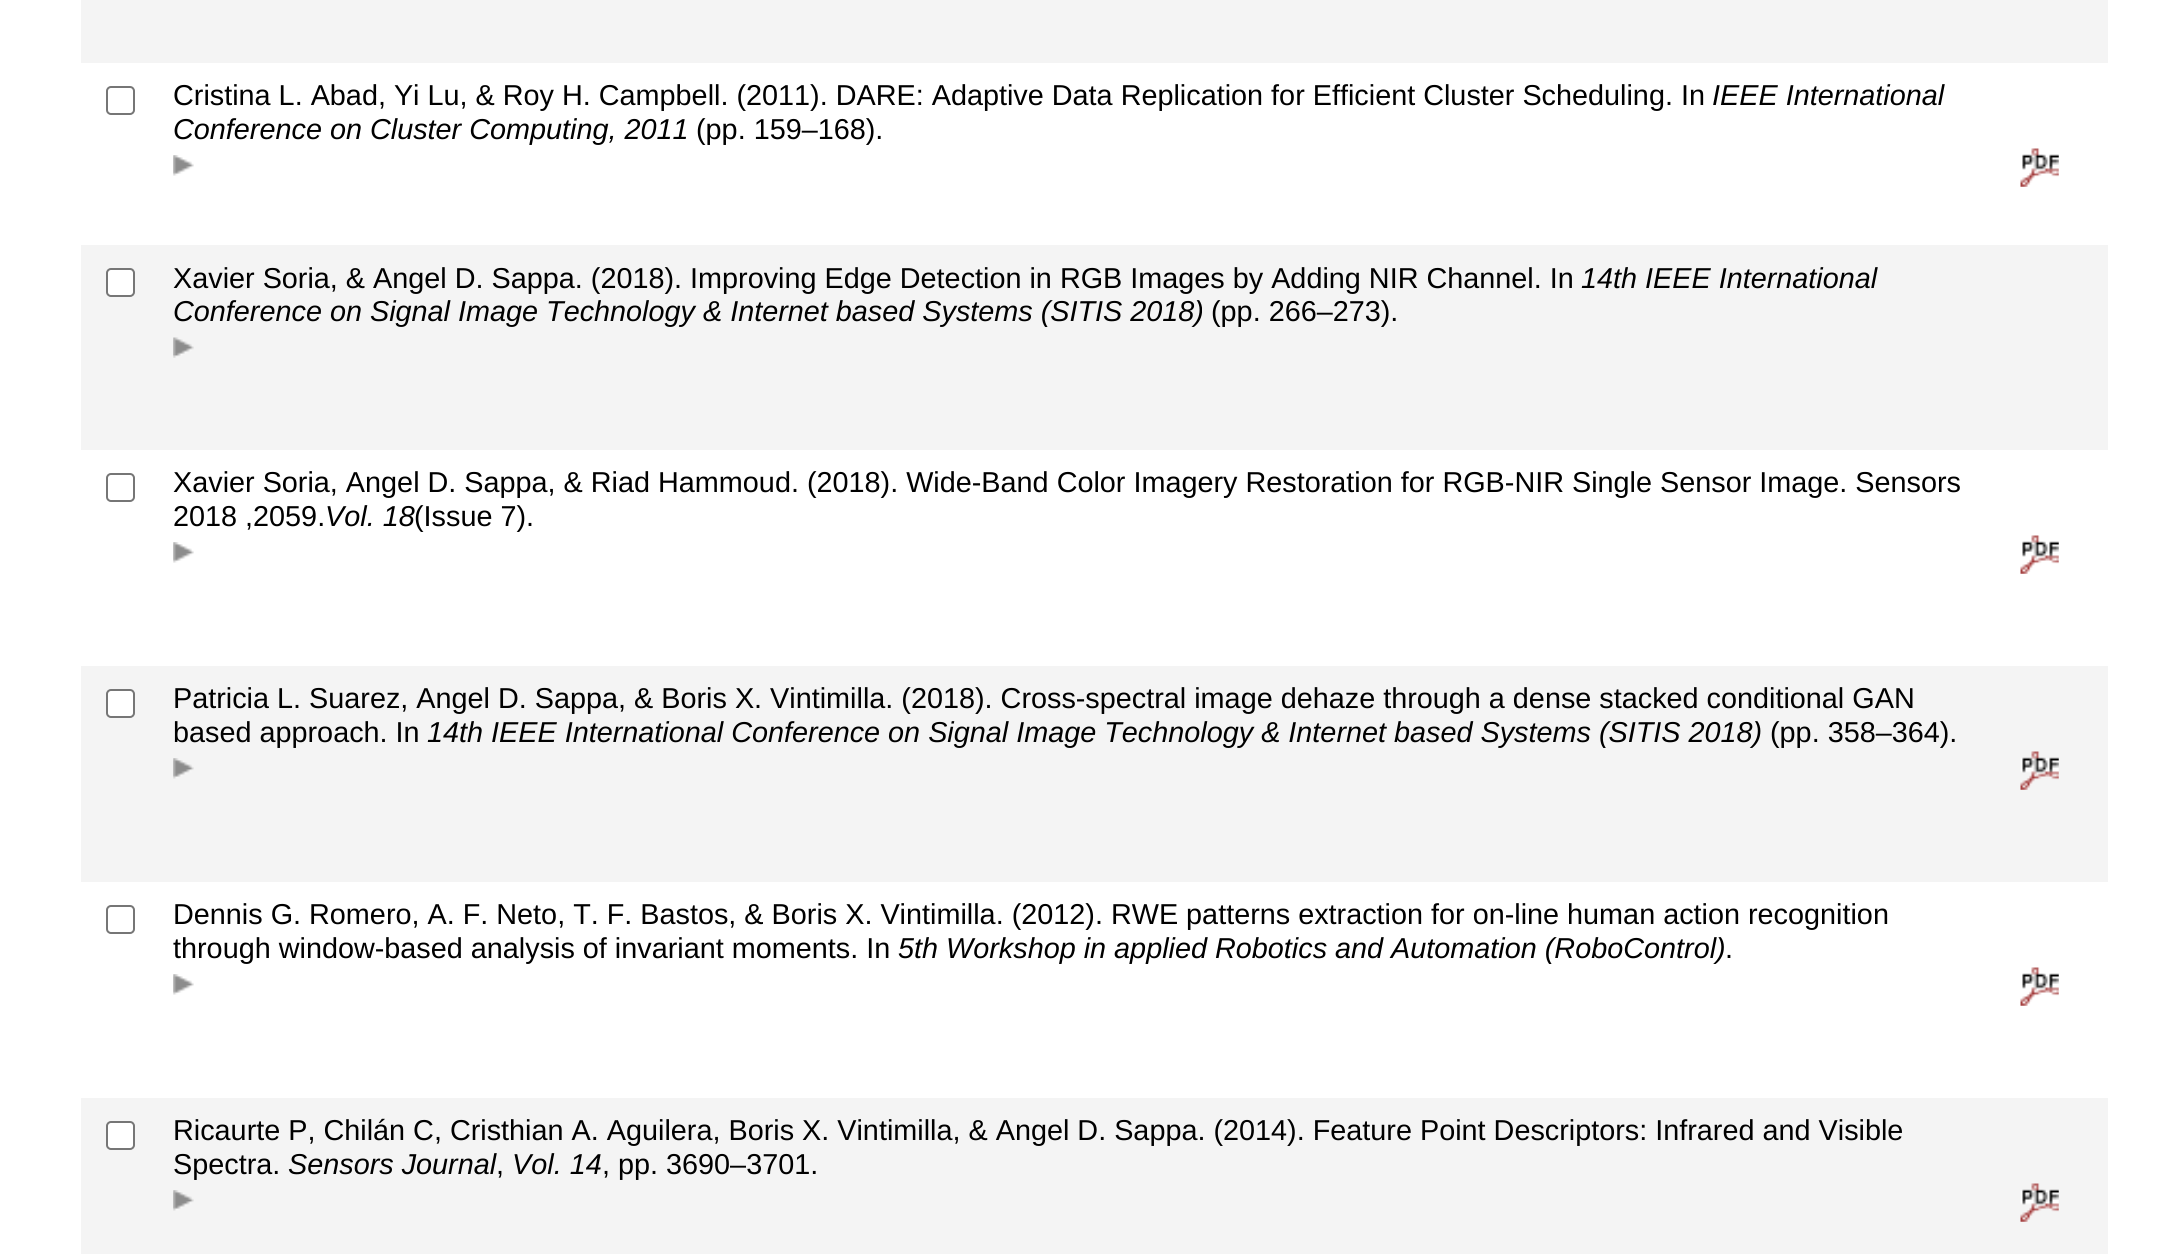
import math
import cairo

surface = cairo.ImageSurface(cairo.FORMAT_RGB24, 2171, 1254)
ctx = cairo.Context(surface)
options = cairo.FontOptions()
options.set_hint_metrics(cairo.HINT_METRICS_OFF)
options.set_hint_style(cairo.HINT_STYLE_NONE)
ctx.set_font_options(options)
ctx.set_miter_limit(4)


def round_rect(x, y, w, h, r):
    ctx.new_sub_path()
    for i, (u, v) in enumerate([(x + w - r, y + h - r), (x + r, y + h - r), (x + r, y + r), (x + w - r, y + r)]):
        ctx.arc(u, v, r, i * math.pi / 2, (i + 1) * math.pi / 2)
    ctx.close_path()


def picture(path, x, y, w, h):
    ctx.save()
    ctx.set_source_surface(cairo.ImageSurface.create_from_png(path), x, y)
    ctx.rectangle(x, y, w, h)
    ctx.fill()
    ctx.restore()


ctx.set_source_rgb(1, 1, 1)
ctx.paint()
ctx.set_source_rgb(0.957, 0.957, 0.957)
ctx.rectangle(81, 0, 2027, 63)
ctx.fill()
round_rect(107, 87, 27, 27, 4)
ctx.set_source_rgb(0.463, 0.463, 0.463)
ctx.stroke()
ctx.select_font_face("Liberation Sans")
ctx.set_font_size(28.8)
ctx.set_source_rgb(0, 0, 0)
ctx.move_to(173, 105)
ctx.show_text("Cristina L. Abad, Yi Lu, & Roy H. Campbell. (2011). DARE: Adaptive Data Replication for Efficient Cluster Scheduling. In")
ctx.select_font_face("Liberation Sans", cairo.FONT_SLANT_ITALIC)
ctx.move_to(1712, 105)
ctx.show_text("IEEE International")
ctx.move_to(173, 139)
ctx.show_text("Conference on Cluster Computing, 2011")
ctx.select_font_face("Liberation Sans")
ctx.move_to(696, 139)
ctx.show_text("(pp. 159–168).")
picture("img1.png", 173, 155, 21, 21)
picture("img2.png", 2020, 148, 39, 39)
ctx.set_source_rgb(0.957, 0.957, 0.957)
ctx.rectangle(81, 245, 2027, 205)
ctx.fill()
ctx.set_source_rgb(1, 1, 1)
round_rect(107, 269, 27, 27, 4)
ctx.fill_preserve()
ctx.set_source_rgb(0.463, 0.463, 0.463)
ctx.stroke()
ctx.set_source_rgb(0, 0, 0)
ctx.move_to(173, 288)
ctx.show_text("Xavier Soria, & Angel D. Sappa. (2018). Improving Edge Detection in RGB Images by Adding NIR Channel. In")
ctx.select_font_face("Liberation Sans", cairo.FONT_SLANT_ITALIC)
ctx.move_to(1581, 288)
ctx.show_text("14th IEEE International")
ctx.move_to(173, 321)
ctx.show_text("Conference on Signal Image Technology & Internet based Systems (SITIS 2018)")
ctx.select_font_face("Liberation Sans")
ctx.move_to(1211, 321)
ctx.show_text("(pp. 266–273).")
picture("img3.png", 173, 337, 21, 21)
round_rect(107, 474, 27, 27, 4)
ctx.set_source_rgb(0.463, 0.463, 0.463)
ctx.stroke()
ctx.set_source_rgb(0, 0, 0)
ctx.move_to(173, 492)
ctx.show_text("Xavier Soria, Angel D. Sappa, & Riad Hammoud. (2018). Wide-Band Color Imagery Restoration for RGB-NIR Single Sensor Image. Sensors")
ctx.move_to(173, 526)
ctx.show_text("2018 ,2059.")
ctx.select_font_face("Liberation Sans", cairo.FONT_SLANT_ITALIC)
ctx.move_to(325, 526)
ctx.show_text("Vol. 18")
ctx.select_font_face("Liberation Sans")
ctx.move_to(414, 526)
ctx.show_text("(Issue 7).")
picture("img1.png", 173, 542, 21, 21)
picture("img2.png", 2020, 535, 39, 39)
ctx.set_source_rgb(0.957, 0.957, 0.957)
ctx.rectangle(81, 666, 2027, 216)
ctx.fill()
ctx.set_source_rgb(1, 1, 1)
round_rect(107, 690, 27, 27, 4)
ctx.fill_preserve()
ctx.set_source_rgb(0.463, 0.463, 0.463)
ctx.stroke()
ctx.set_source_rgb(0, 0, 0)
ctx.move_to(173, 708)
ctx.show_text("Patricia L. Suarez, Angel D. Sappa, & Boris X. Vintimilla. (2018). Cross-spectral image dehaze through a dense stacked conditional GAN")
ctx.move_to(173, 742)
ctx.show_text("based approach. In")
ctx.select_font_face("Liberation Sans", cairo.FONT_SLANT_ITALIC)
ctx.move_to(427, 742)
ctx.show_text("14th IEEE International Conference on Signal Image Technology & Internet based Systems (SITIS 2018)")
ctx.select_font_face("Liberation Sans")
ctx.move_to(1770, 742)
ctx.show_text("(pp. 358–364).")
picture("img4.png", 173, 758, 21, 21)
picture("img5.png", 2020, 751, 39, 39)
round_rect(107, 906, 27, 27, 4)
ctx.set_source_rgb(0.463, 0.463, 0.463)
ctx.stroke()
ctx.set_source_rgb(0, 0, 0)
ctx.move_to(173, 924)
ctx.show_text("Dennis G. Romero, A. F. Neto, T. F. Bastos, & Boris X. Vintimilla. (2012). RWE patterns extraction for on-line human action recognition")
ctx.move_to(173, 958)
ctx.show_text("through window-based analysis of invariant moments. In")
ctx.select_font_face("Liberation Sans", cairo.FONT_SLANT_ITALIC)
ctx.move_to(898, 958)
ctx.show_text("5th Workshop in applied Robotics and Automation (RoboControl)")
ctx.select_font_face("Liberation Sans")
ctx.move_to(1725, 958)
ctx.show_text(".")
picture("img1.png", 173, 974, 21, 21)
picture("img2.png", 2020, 967, 39, 39)
ctx.set_source_rgb(0.957, 0.957, 0.957)
ctx.rectangle(81, 1098, 2027, 156)
ctx.fill()
ctx.set_source_rgb(1, 1, 1)
round_rect(107, 1122, 27, 27, 4)
ctx.fill_preserve()
ctx.set_source_rgb(0.463, 0.463, 0.463)
ctx.stroke()
ctx.set_source_rgb(0, 0, 0)
ctx.move_to(173, 1140)
ctx.show_text("Ricaurte P, Chilán C, Cristhian A. Aguilera, Boris X. Vintimilla, & Angel D. Sappa. (2014). Feature Point Descriptors: Infrared and Visible")
ctx.move_to(173, 1174)
ctx.show_text("Spectra.")
ctx.select_font_face("Liberation Sans", cairo.FONT_SLANT_ITALIC)
ctx.move_to(288, 1174)
ctx.show_text("Sensors Journal")
ctx.select_font_face("Liberation Sans")
ctx.move_to(496, 1174)
ctx.show_text(",")
ctx.select_font_face("Liberation Sans", cairo.FONT_SLANT_ITALIC)
ctx.move_to(512, 1174)
ctx.show_text("Vol. 14")
ctx.select_font_face("Liberation Sans")
ctx.move_to(602, 1174)
ctx.show_text(", pp. 3690–3701.")
picture("img4.png", 173, 1190, 21, 21)
picture("img5.png", 2020, 1183, 39, 39)
surface.write_to_png("page.png")
